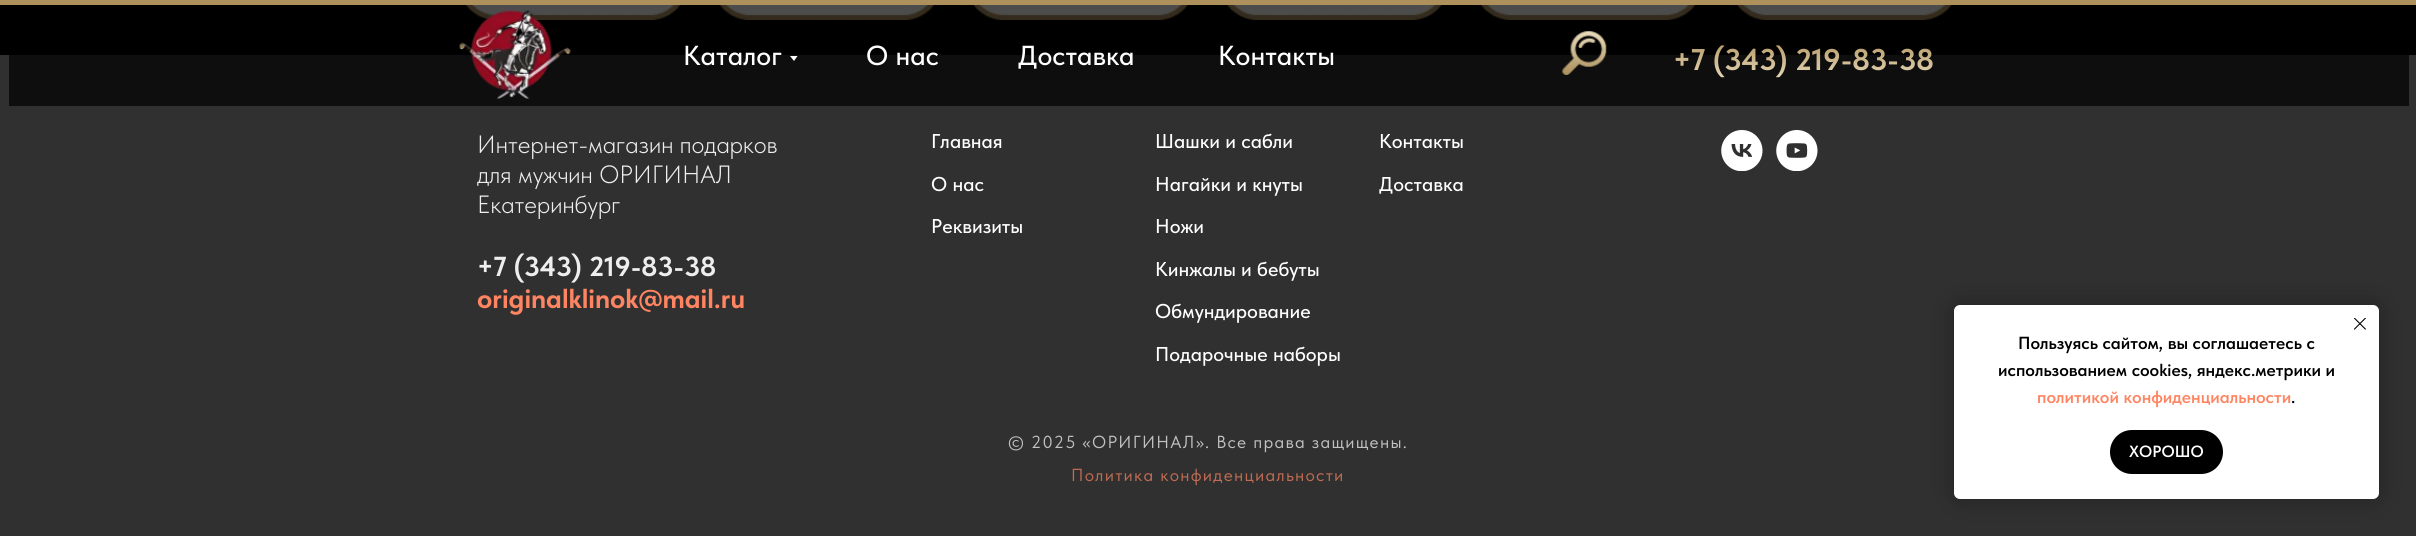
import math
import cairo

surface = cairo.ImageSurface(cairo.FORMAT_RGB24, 2416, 536)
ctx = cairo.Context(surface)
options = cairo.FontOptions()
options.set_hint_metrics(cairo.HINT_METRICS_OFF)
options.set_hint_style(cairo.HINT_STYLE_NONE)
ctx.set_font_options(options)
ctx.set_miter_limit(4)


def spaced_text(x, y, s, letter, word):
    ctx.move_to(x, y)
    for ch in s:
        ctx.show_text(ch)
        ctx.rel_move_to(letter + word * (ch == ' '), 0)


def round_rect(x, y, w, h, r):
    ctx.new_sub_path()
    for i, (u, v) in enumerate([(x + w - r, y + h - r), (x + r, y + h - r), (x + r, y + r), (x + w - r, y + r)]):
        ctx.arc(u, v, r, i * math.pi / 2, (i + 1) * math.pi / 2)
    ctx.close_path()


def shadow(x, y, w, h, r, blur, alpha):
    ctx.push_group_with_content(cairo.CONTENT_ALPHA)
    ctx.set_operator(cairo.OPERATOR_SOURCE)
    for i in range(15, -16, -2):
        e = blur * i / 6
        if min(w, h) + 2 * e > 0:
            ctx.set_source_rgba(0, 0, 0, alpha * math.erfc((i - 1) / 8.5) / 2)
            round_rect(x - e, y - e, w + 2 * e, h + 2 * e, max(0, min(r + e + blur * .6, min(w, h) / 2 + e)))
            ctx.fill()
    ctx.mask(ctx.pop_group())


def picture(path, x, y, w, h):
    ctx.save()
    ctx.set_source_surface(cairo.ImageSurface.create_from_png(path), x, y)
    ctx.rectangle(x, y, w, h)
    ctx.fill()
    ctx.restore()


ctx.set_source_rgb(0.188, 0.188, 0.188)
ctx.paint()
ctx.set_source_rgb(0, 0, 0)
ctx.rectangle(0, 5, 2416, 50)
ctx.fill()
picture("img1.png", 465, 5, 216, 15)
picture("img2.png", 719, 5, 216, 15)
picture("img3.png", 972, 5, 217, 15)
picture("img4.png", 1226, 5, 216, 15)
picture("img5.png", 1480, 5, 216, 15)
picture("img6.png", 1736, 5, 217, 15)
ctx.set_source_rgb(0.055, 0.055, 0.055)
ctx.rectangle(9, 55, 2400, 51)
ctx.fill()
picture("img7.png", 459, 10, 112, 89)
ctx.select_font_face("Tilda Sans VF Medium")
ctx.set_font_size(27.5)
ctx.set_source_rgb(1, 1, 1)
ctx.move_to(683, 65)
ctx.show_text("Каталог")
ctx.new_path()
ctx.move_to(790, 56)
ctx.line_to(797.5, 56)
ctx.line_to(794, 61)
ctx.close_path()
ctx.fill()
ctx.move_to(866, 65)
ctx.show_text("О нас")
ctx.move_to(1018, 65)
ctx.show_text("Доставка")
ctx.move_to(1218, 65)
ctx.show_text("Контакты")
picture("img8.png", 1562, 31, 45, 44)
ctx.select_font_face("Tilda Sans VF", cairo.FONT_SLANT_NORMAL, cairo.FONT_WEIGHT_BOLD)
ctx.set_font_size(30)
gradient = cairo.LinearGradient(1804, 83, 1804, 36)
gradient.add_color_stop_rgba(0, 0.922, 0.871, 0.753, 1)
gradient.add_color_stop_rgba(1, 0.682, 0.565, 0.361, 1)
ctx.set_source(gradient)
ctx.move_to(1673, 70)
ctx.show_text("+7 (343) 219-83-38")
ctx.set_source_rgb(0.682, 0.565, 0.361)
ctx.rectangle(0, 0, 2416, 5)
ctx.fill()
ctx.select_font_face("Tilda Sans VF Light")
ctx.set_font_size(25)
ctx.set_source_rgb(0.933, 0.933, 0.933)
ctx.move_to(477, 153)
ctx.show_text("Интернет-магазин подарков")
ctx.move_to(477, 183)
ctx.show_text("для мужчин ОРИГИНАЛ")
ctx.move_to(477, 213)
ctx.show_text("Екатеринбург")
ctx.select_font_face("Tilda Sans VF", cairo.FONT_SLANT_NORMAL, cairo.FONT_WEIGHT_BOLD)
ctx.set_font_size(27.5)
ctx.move_to(477, 276)
ctx.show_text("+7 (343) 219-83-38")
ctx.set_source_rgb(1, 0.522, 0.384)
ctx.move_to(477, 308)
ctx.show_text("originalklinok@mail.ru")
ctx.select_font_face("Tilda Sans VF Medium")
ctx.set_font_size(20)
ctx.set_source_rgb(1, 1, 1)
ctx.move_to(931, 148)
ctx.show_text("Главная")
ctx.move_to(931, 191)
ctx.show_text("О нас")
ctx.move_to(931, 233)
ctx.show_text("Реквизиты")
ctx.move_to(1155, 148)
ctx.show_text("Шашки и сабли")
ctx.move_to(1155, 191)
ctx.show_text("Нагайки и кнуты")
ctx.move_to(1155, 233)
ctx.show_text("Ножи")
ctx.move_to(1155, 276)
ctx.show_text("Кинжалы и бебуты")
ctx.move_to(1155, 318)
ctx.show_text("Обмундирование")
ctx.move_to(1155, 361)
ctx.show_text("Подарочные наборы")
ctx.move_to(1379, 148)
ctx.show_text("Контакты")
ctx.move_to(1379, 191)
ctx.show_text("Доставка")
picture("img9.png", 1721, 130, 42, 41)
picture("img10.png", 1776, 130, 42, 41)
ctx.select_font_face("Tilda Sans VF")
ctx.set_font_size(17.5)
ctx.set_source_rgb(0.757, 0.757, 0.757)
spaced_text(1008, 448, "© 2025 «ОРИГИНАЛ». Все права защищены.", 1.25, 0)
ctx.set_source_rgb(0.757, 0.424, 0.325)
spaced_text(1071, 481, "Политика конфиденциальности", 1.25, 0)
ctx.set_source_rgb(0, 0, 0)
shadow(1954, 305, 425, 194, 6, 12.5, 0.3)
ctx.set_source_rgb(1, 1, 1)
round_rect(1954, 305, 425, 194, 6)
ctx.fill()
picture("img11.png", 2354, 318, 12, 12)
ctx.select_font_face("Tilda Sans VF SemiBold")
ctx.set_source_rgb(0, 0, 0)
ctx.move_to(2018, 349)
ctx.show_text("Пользуясь сайтом, вы соглашаетесь с")
ctx.move_to(1998, 376)
ctx.show_text("использованием cookies, яндекс.метрики и")
ctx.set_source_rgb(1, 0.522, 0.384)
ctx.move_to(2037, 403)
ctx.show_text("политикой конфиденциальности")
ctx.set_source_rgb(0, 0, 0)
ctx.move_to(2291, 403)
ctx.show_text(".")
round_rect(2110, 430, 113, 44, 22)
ctx.fill()
ctx.set_font_size(16.25)
ctx.set_source_rgb(1, 1, 1)
ctx.move_to(2129, 457)
ctx.show_text("ХОРОШО")
surface.write_to_png("page.png")
